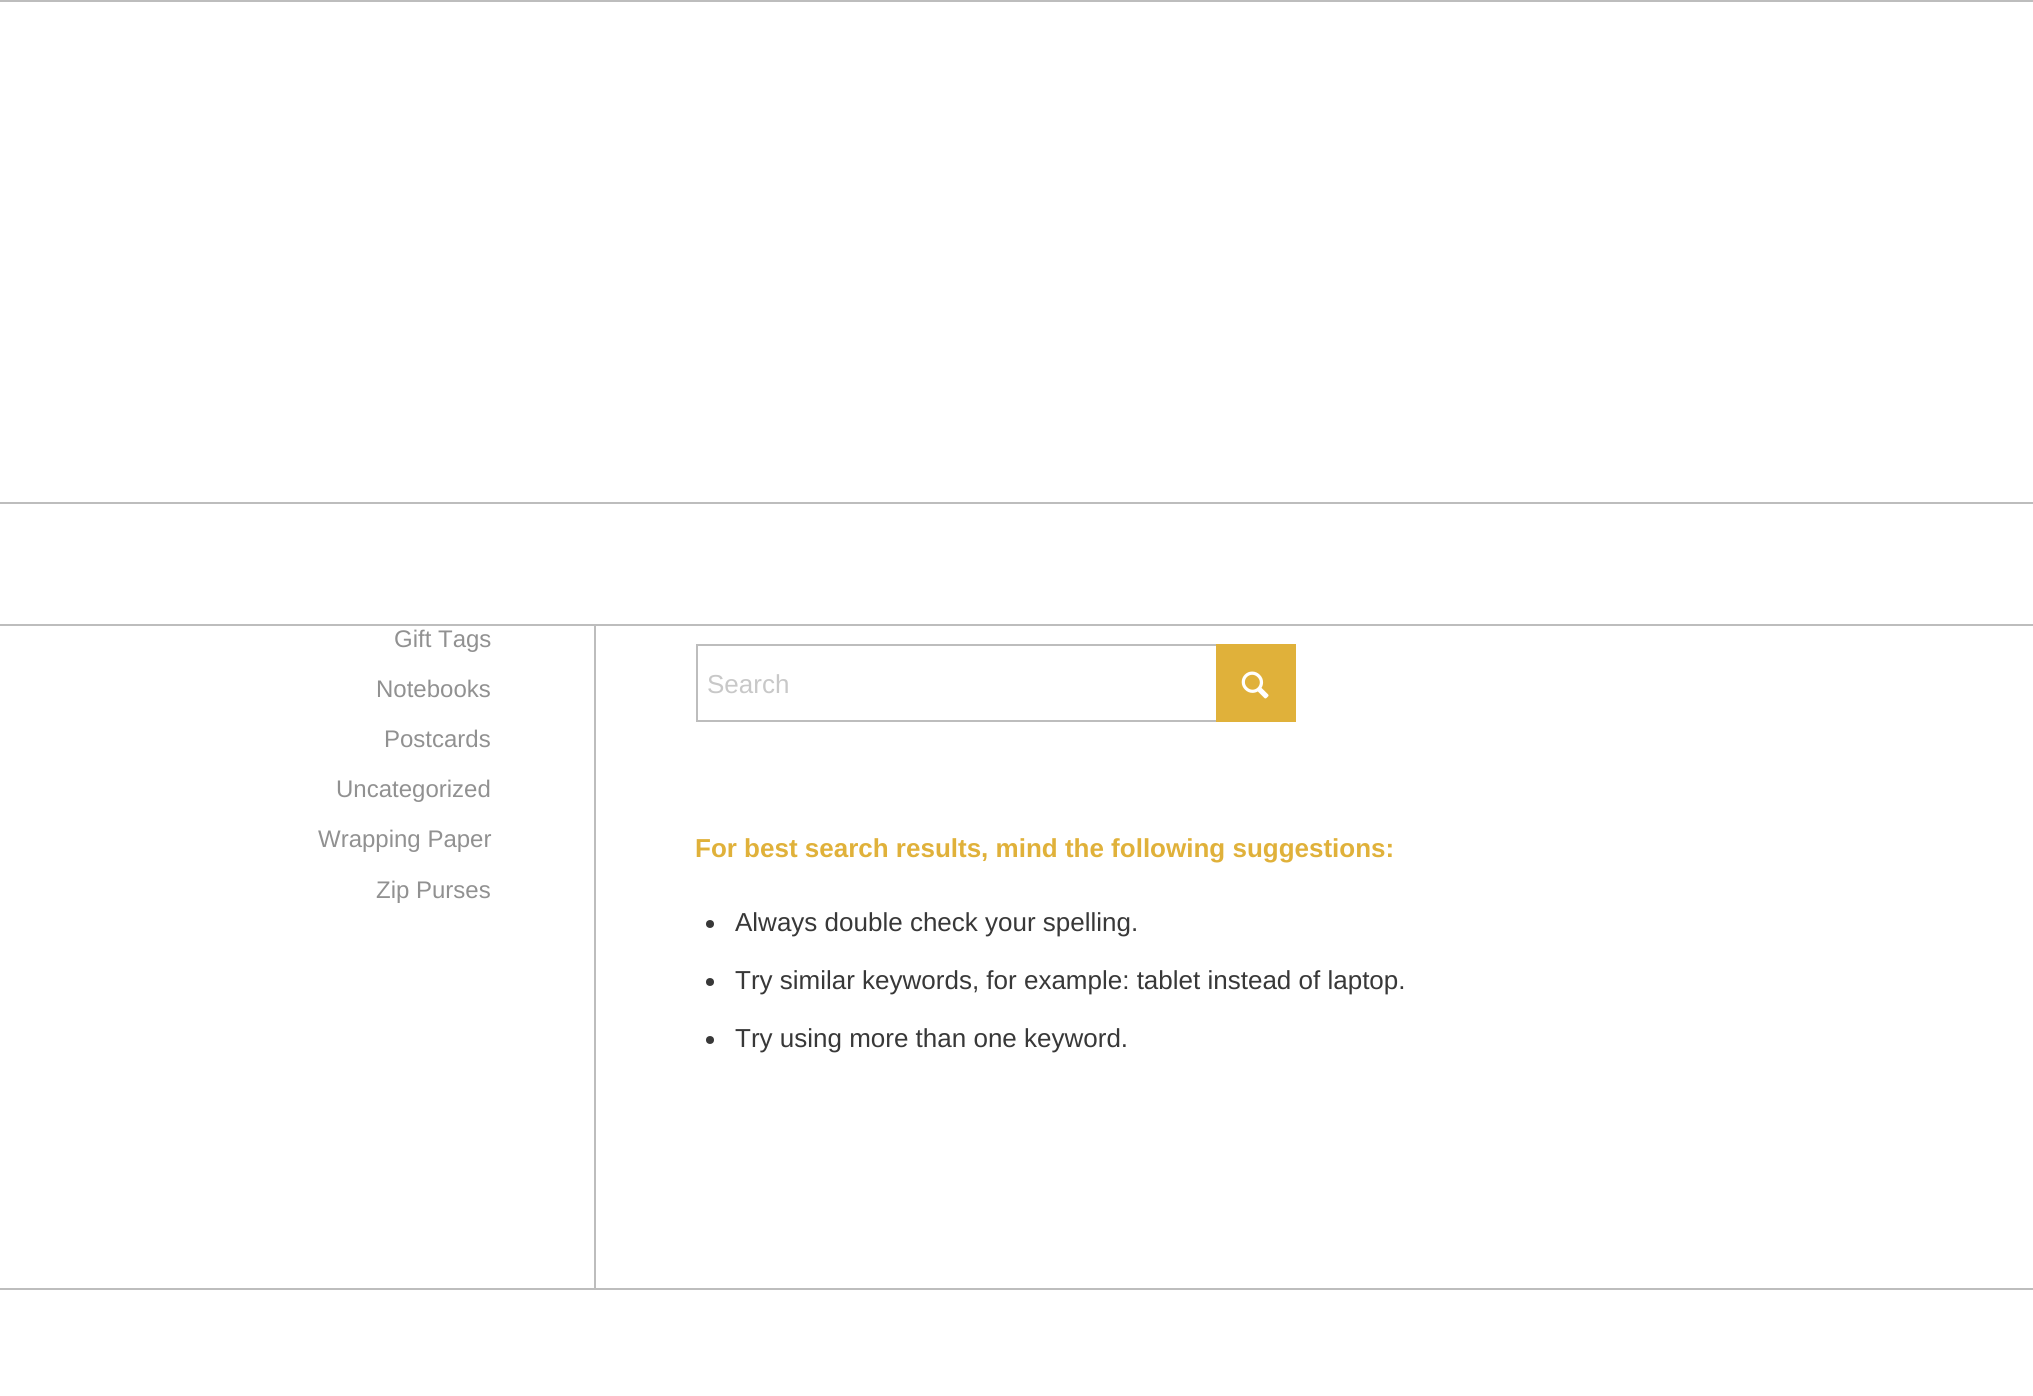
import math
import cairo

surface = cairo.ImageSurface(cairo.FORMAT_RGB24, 2033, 1396)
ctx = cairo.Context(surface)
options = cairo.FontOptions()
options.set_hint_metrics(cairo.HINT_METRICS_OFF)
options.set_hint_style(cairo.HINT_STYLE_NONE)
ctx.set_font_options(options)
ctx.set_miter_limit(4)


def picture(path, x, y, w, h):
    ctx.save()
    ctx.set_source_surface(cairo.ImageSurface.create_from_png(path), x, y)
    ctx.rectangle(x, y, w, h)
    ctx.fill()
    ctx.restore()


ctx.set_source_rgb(1, 1, 1)
ctx.paint()
ctx.set_source_rgb(0.741, 0.741, 0.741)
ctx.rectangle(0, 0, 2033, 2)
ctx.fill()
ctx.rectangle(0, 624, 2033, 2)
ctx.fill()
ctx.rectangle(0, 502, 2033, 2)
ctx.fill()
ctx.select_font_face("Liberation Sans")
ctx.set_font_size(24)
ctx.set_source_rgb(0.569, 0.569, 0.569)
ctx.move_to(394, 647)
ctx.show_text("Gift Tags")
ctx.move_to(376, 697)
ctx.show_text("Notebooks")
ctx.move_to(384, 747)
ctx.show_text("Postcards")
ctx.move_to(336, 797)
ctx.show_text("Uncategorized")
ctx.move_to(318, 847)
ctx.show_text("Wrapping Paper")
ctx.move_to(376, 898)
ctx.show_text("Zip Purses")
ctx.set_source_rgb(0.741, 0.741, 0.741)
ctx.rectangle(594, 626, 2, 662)
ctx.fill()
ctx.rectangle(697, 645, 598, 76)
ctx.stroke()
ctx.set_source_rgb(0.878, 0.694, 0.227)
ctx.rectangle(1216, 644, 80, 78)
ctx.fill()
ctx.set_font_size(26)
ctx.set_source_rgb(0.784, 0.784, 0.784)
ctx.move_to(707, 693)
ctx.show_text("Search")
picture("img1.png", 1241, 671, 28, 28)
ctx.select_font_face("Liberation Sans", cairo.FONT_SLANT_NORMAL, cairo.FONT_WEIGHT_BOLD)
ctx.set_source_rgb(0.878, 0.694, 0.227)
ctx.move_to(695, 857)
ctx.show_text("For best search results, mind the following suggestions:")
ctx.set_source_rgb(0.22, 0.22, 0.22)
ctx.new_path()
ctx.arc(710, 924, 4, 0, 2 * math.pi)
ctx.fill()
ctx.select_font_face("Liberation Sans")
ctx.move_to(735, 931)
ctx.show_text("Always double check your spelling.")
ctx.new_path()
ctx.arc(710, 982, 4, 0, 2 * math.pi)
ctx.fill()
ctx.move_to(735, 989)
ctx.show_text("Try similar keywords, for example: tablet instead of laptop.")
ctx.new_path()
ctx.arc(710, 1040, 4, 0, 2 * math.pi)
ctx.fill()
ctx.move_to(735, 1047)
ctx.show_text("Try using more than one keyword.")
ctx.set_source_rgb(0.741, 0.741, 0.741)
ctx.rectangle(0, 1288, 2033, 2)
ctx.fill()
surface.write_to_png("page.png")
